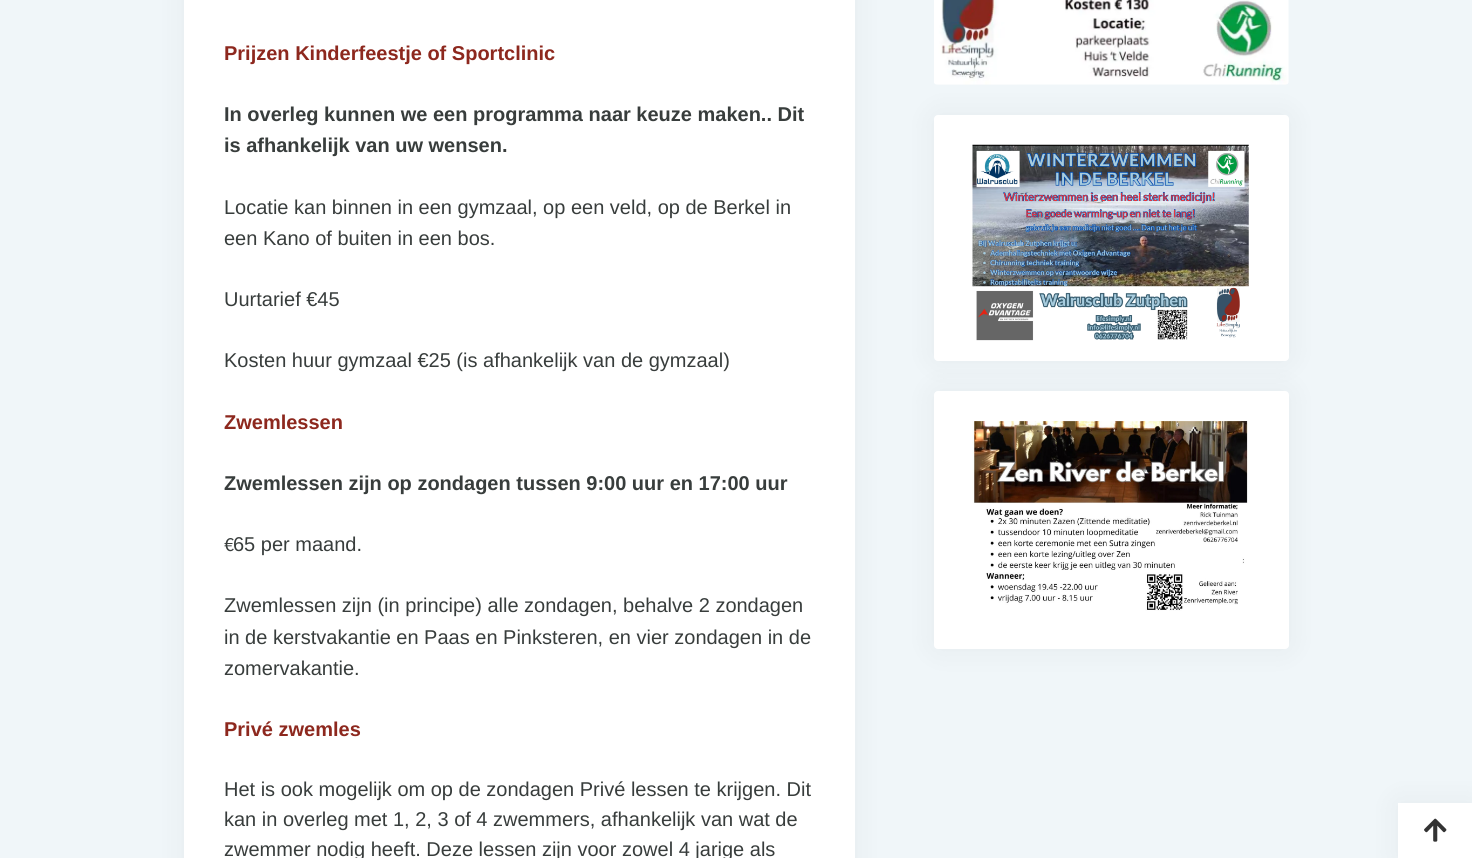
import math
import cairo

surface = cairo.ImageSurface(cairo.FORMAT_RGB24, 1472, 858)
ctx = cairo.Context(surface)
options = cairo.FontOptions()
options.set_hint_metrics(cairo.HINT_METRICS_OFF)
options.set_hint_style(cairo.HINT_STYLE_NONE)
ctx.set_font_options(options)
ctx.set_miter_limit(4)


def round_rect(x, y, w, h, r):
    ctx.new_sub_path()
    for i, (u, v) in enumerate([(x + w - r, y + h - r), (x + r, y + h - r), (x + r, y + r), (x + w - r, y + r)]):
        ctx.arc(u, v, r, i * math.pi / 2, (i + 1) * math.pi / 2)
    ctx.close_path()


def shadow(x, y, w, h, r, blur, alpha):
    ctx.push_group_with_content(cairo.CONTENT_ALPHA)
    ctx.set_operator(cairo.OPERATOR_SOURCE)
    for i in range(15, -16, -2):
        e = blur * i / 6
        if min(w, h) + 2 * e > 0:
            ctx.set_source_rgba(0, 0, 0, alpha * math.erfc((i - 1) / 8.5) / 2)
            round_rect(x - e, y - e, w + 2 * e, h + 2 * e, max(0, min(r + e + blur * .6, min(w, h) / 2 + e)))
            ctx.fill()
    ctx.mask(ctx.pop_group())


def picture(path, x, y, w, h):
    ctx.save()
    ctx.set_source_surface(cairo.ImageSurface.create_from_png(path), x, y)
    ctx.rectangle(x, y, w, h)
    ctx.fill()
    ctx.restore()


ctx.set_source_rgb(0.941, 0.961, 0.973)
ctx.paint()
ctx.set_source_rgb(0, 0, 0)
shadow(184, -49, 671, 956, 4, 15, 0.05)
ctx.set_source_rgb(1, 1, 1)
ctx.rectangle(184, 0, 671, 858)
ctx.fill()
ctx.select_font_face("Liberation Sans", cairo.FONT_SLANT_NORMAL, cairo.FONT_WEIGHT_BOLD)
ctx.set_font_size(20)
ctx.set_source_rgb(0.553, 0.157, 0.118)
ctx.move_to(224, 60)
ctx.show_text("Prijzen Kinderfeestje of Sportclinic")
ctx.set_source_rgb(0.22, 0.239, 0.235)
ctx.move_to(224, 121)
ctx.show_text("In overleg kunnen we een programma naar keuze maken.. Dit")
ctx.move_to(224, 152)
ctx.show_text("is afhankelijk van uw wensen.")
ctx.select_font_face("Liberation Sans")
ctx.move_to(224, 214)
ctx.show_text("Locatie kan binnen in een gymzaal, op een veld, op de Berkel in")
ctx.move_to(224, 245)
ctx.show_text("een Kano of buiten in een bos.")
ctx.move_to(224, 306)
ctx.show_text("Uurtarief €45")
ctx.move_to(224, 367)
ctx.show_text("Kosten huur gymzaal €25 (is afhankelijk van de gymzaal)")
ctx.select_font_face("Liberation Sans", cairo.FONT_SLANT_NORMAL, cairo.FONT_WEIGHT_BOLD)
ctx.set_source_rgb(0.553, 0.157, 0.118)
ctx.move_to(224, 429)
ctx.show_text("Zwemlessen")
ctx.set_source_rgb(0.22, 0.239, 0.235)
ctx.move_to(224, 490)
ctx.show_text("Zwemlessen zijn op zondagen tussen 9:00 uur en 17:00 uur")
ctx.select_font_face("Source Sans Pro")
ctx.move_to(224, 551)
ctx.show_text("€")
ctx.select_font_face("Liberation Sans")
ctx.move_to(233, 551)
ctx.show_text("65 per maand.")
ctx.move_to(224, 612)
ctx.show_text("Zwemlessen zijn (in principe) alle zondagen, behalve 2 zondagen")
ctx.move_to(224, 644)
ctx.show_text("in de kerstvakantie en Paas en Pinksteren, en vier zondagen in de")
ctx.move_to(224, 675)
ctx.show_text("zomervakantie.")
ctx.select_font_face("Liberation Sans", cairo.FONT_SLANT_NORMAL, cairo.FONT_WEIGHT_BOLD)
ctx.set_source_rgb(0.553, 0.157, 0.118)
ctx.move_to(224, 736)
ctx.show_text("Privé zwemles")
ctx.select_font_face("Liberation Sans")
ctx.set_source_rgb(0.22, 0.239, 0.235)
ctx.move_to(224, 796)
ctx.show_text("Het is ook mogelijk om op de zondagen Privé lessen te krijgen. Dit")
ctx.move_to(224, 826)
ctx.show_text("kan in overleg met 1, 2, 3 of 4 zwemmers, afhankelijk van wat de")
ctx.move_to(224, 856)
ctx.show_text("zwemmer nodig heeft. Deze lessen zijn voor zowel 4 jarige als")
ctx.set_source_rgb(0, 0, 0)
shadow(934, 115, 355, 246, 4, 15, 0.05)
picture("img1.png", 934, 0, 355, 85)
ctx.set_source_rgb(1, 1, 1)
round_rect(934, 115, 355, 246, 4)
ctx.fill()
picture("img2.png", 972, 144, 277, 197)
ctx.set_source_rgb(0, 0, 0)
shadow(934, 391, 355, 258, 4, 15, 0.05)
ctx.set_source_rgb(1, 1, 1)
round_rect(934, 391, 355, 258, 4)
ctx.fill()
picture("img3.png", 972, 421, 276, 190)
ctx.set_source_rgb(0, 0, 0)
shadow(1398, 803, 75, 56, 0, 15, 0.05)
ctx.set_source_rgb(1, 1, 1)
ctx.rectangle(1398, 803, 74, 55)
ctx.fill()
picture("img4.png", 1424, 818, 23, 24)
surface.write_to_png("page.png")
